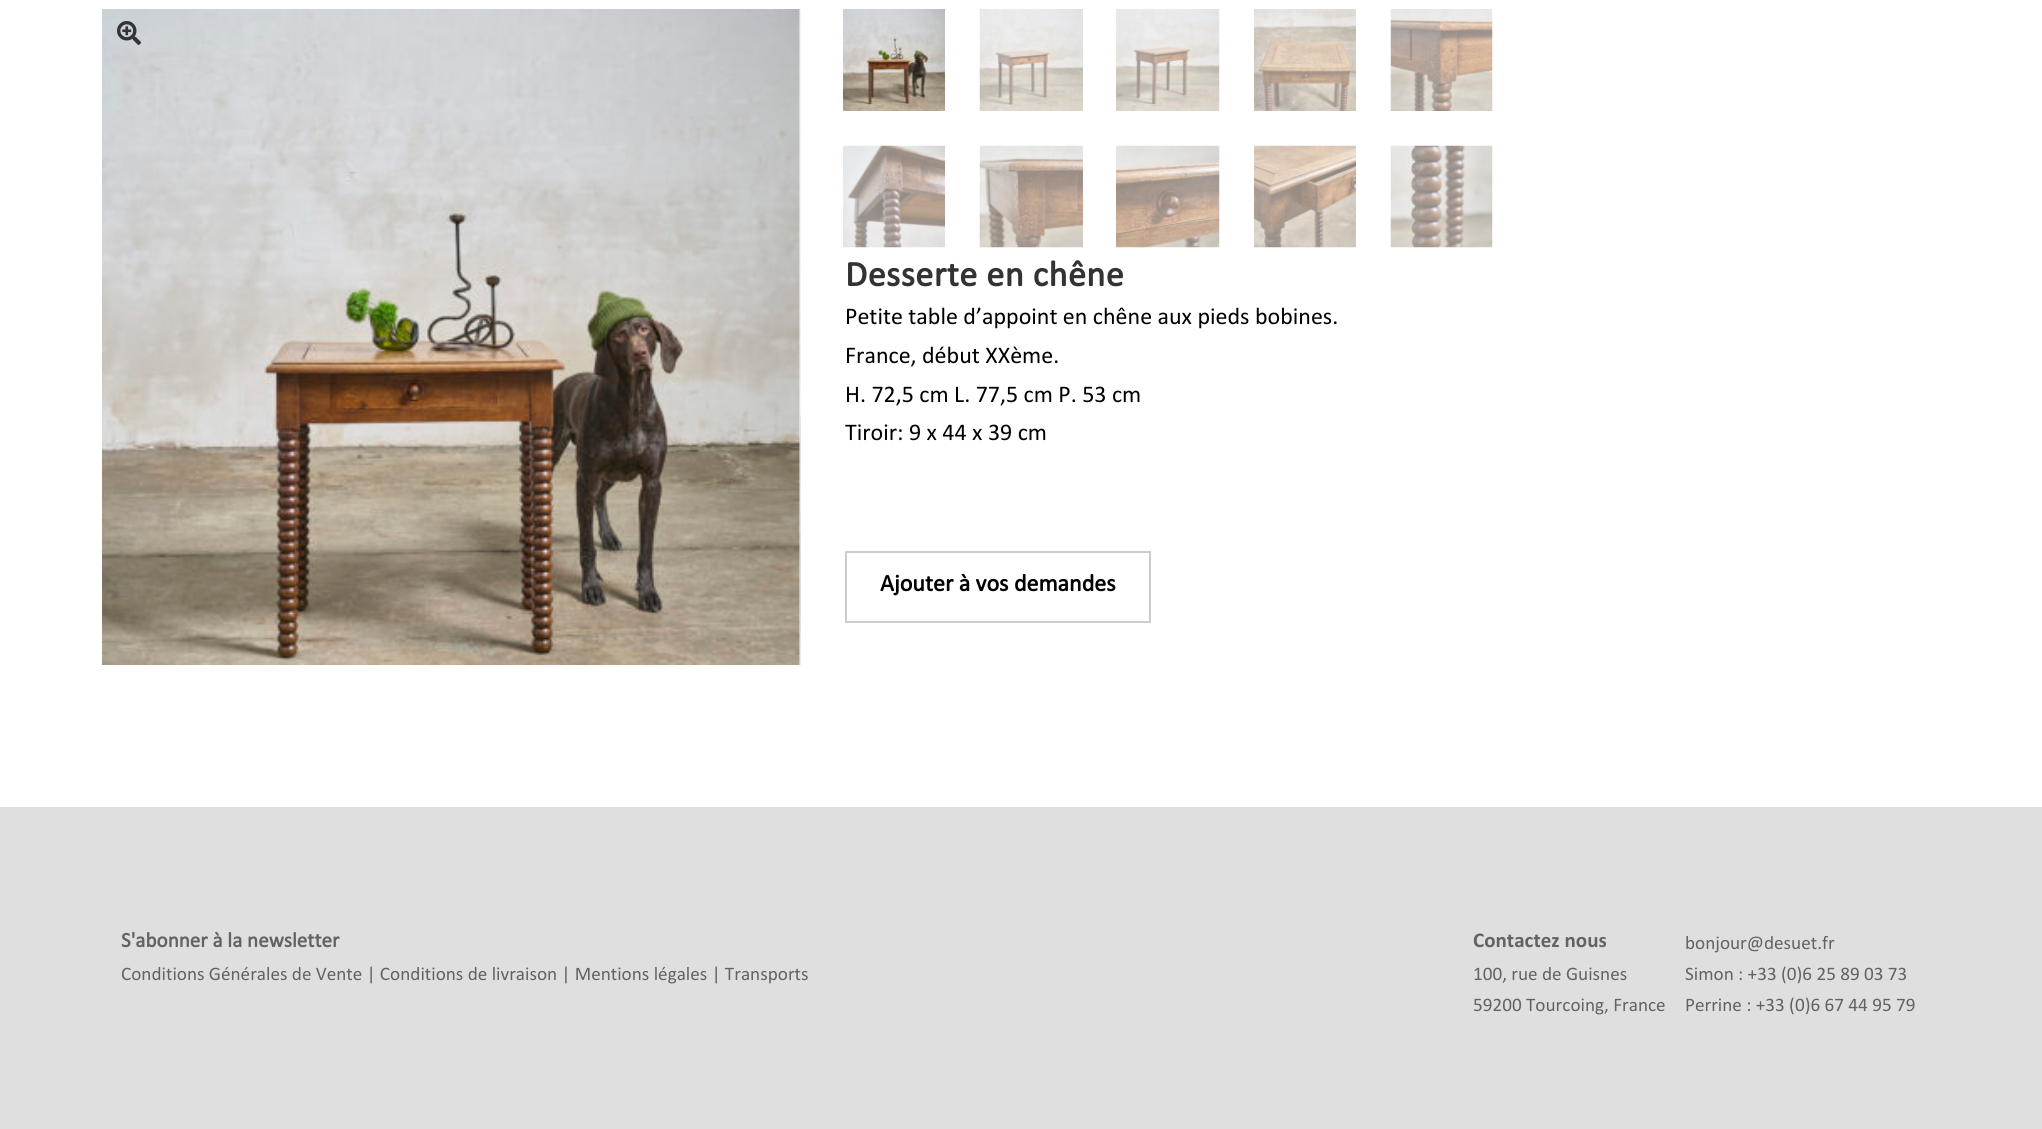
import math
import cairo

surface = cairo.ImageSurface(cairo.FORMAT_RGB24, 2042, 1129)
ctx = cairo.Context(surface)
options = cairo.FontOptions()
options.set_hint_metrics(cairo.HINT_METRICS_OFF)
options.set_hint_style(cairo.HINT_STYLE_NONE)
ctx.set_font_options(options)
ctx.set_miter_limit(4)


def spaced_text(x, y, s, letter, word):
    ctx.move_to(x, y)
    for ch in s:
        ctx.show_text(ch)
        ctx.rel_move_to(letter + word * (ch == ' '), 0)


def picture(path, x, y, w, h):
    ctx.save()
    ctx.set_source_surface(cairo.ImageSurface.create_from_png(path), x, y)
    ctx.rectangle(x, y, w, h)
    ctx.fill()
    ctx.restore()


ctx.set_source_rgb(1, 1, 1)
ctx.paint()
picture("img1.png", 102, 9, 698, 656)
picture("img2.png", 800, 9, 1, 656)
picture("img3.png", 843, 9, 102, 102)
picture("img4.png", 979, 9, 104, 102)
picture("img5.png", 1116, 9, 104, 102)
picture("img6.png", 1254, 9, 102, 102)
picture("img7.png", 1390, 9, 103, 102)
picture("img8.png", 843, 145, 102, 103)
picture("img9.png", 979, 145, 104, 103)
picture("img10.png", 1116, 145, 104, 103)
picture("img11.png", 1254, 145, 102, 103)
picture("img12.png", 1390, 145, 103, 103)
picture("img13.png", 117, 21, 24, 24)
ctx.select_font_face("Calibri", cairo.FONT_SLANT_NORMAL, cairo.FONT_WEIGHT_BOLD)
ctx.set_font_size(36)
ctx.set_source_rgb(0.2, 0.2, 0.2)
spaced_text(845, 286, "Desserte en chêne", 0.5, 0)
ctx.select_font_face("Calibri")
ctx.set_font_size(24)
ctx.set_source_rgb(0, 0, 0)
ctx.move_to(845, 324)
ctx.show_text("Petite table d’appoint en chêne aux pieds bobines.")
ctx.move_to(845, 363)
ctx.show_text("France, début XXème.")
ctx.move_to(845, 402)
ctx.show_text("H. 72,5 cm L. 77,5 cm P. 53 cm")
ctx.move_to(845, 440)
ctx.show_text("Tiroir: 9 x 44 x 39 cm")
ctx.rectangle(846, 552, 304, 70)
ctx.set_source_rgb(0.8, 0.8, 0.8)
ctx.stroke()
ctx.select_font_face("Calibri", cairo.FONT_SLANT_NORMAL, cairo.FONT_WEIGHT_BOLD)
ctx.set_source_rgb(0, 0, 0)
ctx.move_to(880, 591)
ctx.show_text("Ajouter à vos demandes")
ctx.set_source_rgb(0.875, 0.875, 0.875)
ctx.rectangle(0, 807, 2042, 322)
ctx.fill()
ctx.set_font_size(21.1)
ctx.set_source_rgb(0.388, 0.388, 0.388)
ctx.move_to(121, 947)
ctx.show_text("S'abonner à la newsletter")
ctx.select_font_face("Calibri")
ctx.set_font_size(19.2)
ctx.move_to(121, 980)
ctx.show_text("Conditions Générales de Vente | Conditions de livraison | Mentions légales | Transports")
ctx.select_font_face("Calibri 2", cairo.FONT_SLANT_NORMAL, cairo.FONT_WEIGHT_BOLD)
ctx.set_font_size(21.1)
ctx.move_to(1473, 947)
ctx.show_text("Contactez nous")
ctx.select_font_face("Calibri")
ctx.set_font_size(19.2)
ctx.move_to(1473, 980)
ctx.show_text("100, rue de Guisnes")
ctx.move_to(1473, 1011)
ctx.show_text("59200 Tourcoing, France")
ctx.move_to(1685, 949)
ctx.show_text("bonjour@desuet.fr")
ctx.move_to(1685, 980)
ctx.show_text("Simon : +33 (0)6 25 89 03 73")
ctx.move_to(1685, 1011)
ctx.show_text("Perrine : +33 (0)6 67 44 95 79")
surface.write_to_png("page.png")
